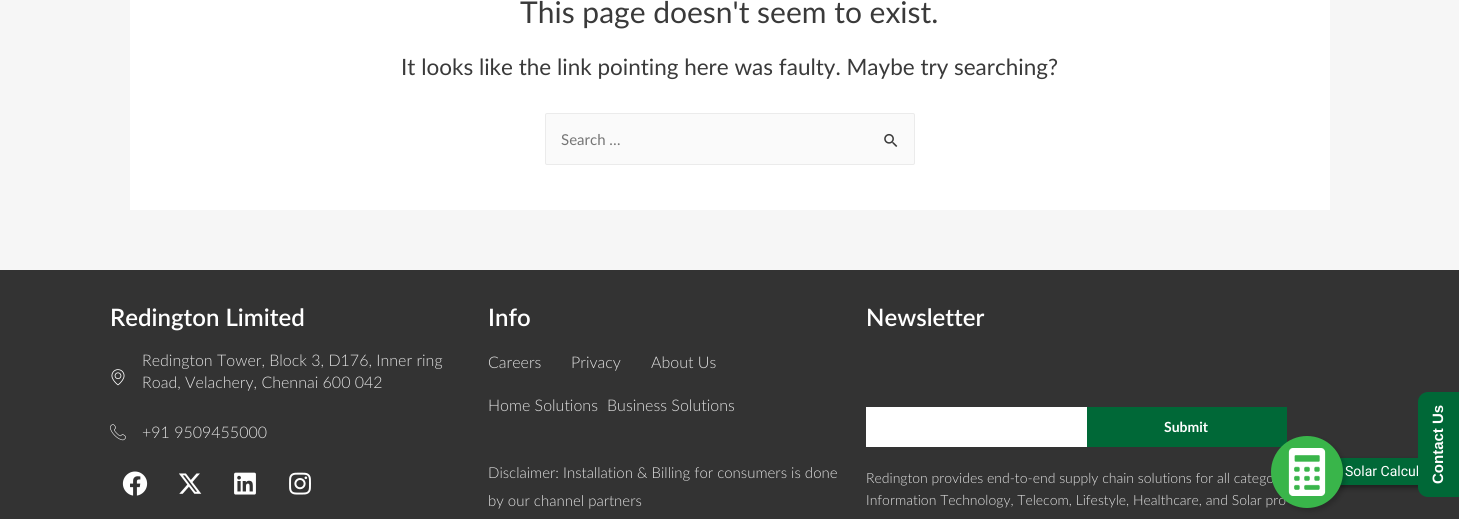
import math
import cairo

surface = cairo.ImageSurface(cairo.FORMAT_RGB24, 1459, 519)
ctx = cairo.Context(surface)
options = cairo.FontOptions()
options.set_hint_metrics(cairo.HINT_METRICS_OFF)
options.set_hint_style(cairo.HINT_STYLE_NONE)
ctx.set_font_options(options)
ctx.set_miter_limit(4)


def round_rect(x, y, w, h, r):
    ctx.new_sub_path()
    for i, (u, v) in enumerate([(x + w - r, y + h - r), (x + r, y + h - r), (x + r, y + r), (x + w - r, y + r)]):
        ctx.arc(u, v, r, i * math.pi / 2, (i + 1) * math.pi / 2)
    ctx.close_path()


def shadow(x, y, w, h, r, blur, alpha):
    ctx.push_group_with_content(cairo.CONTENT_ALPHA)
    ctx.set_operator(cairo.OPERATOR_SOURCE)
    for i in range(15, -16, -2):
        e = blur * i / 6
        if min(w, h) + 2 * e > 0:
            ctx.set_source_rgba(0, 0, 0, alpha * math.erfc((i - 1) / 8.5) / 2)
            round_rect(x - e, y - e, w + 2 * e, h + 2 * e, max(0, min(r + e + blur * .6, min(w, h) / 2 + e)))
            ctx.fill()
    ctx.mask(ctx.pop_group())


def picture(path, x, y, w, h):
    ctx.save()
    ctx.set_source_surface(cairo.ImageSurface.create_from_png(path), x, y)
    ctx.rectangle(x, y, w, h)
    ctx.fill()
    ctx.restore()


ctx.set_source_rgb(0.961, 0.961, 0.961)
ctx.paint()
ctx.set_source_rgb(1, 1, 1)
ctx.rectangle(130, 0, 1200, 210)
ctx.fill()
ctx.select_font_face("Lato")
ctx.set_font_size(30)
ctx.set_source_rgb(0.227, 0.227, 0.227)
ctx.move_to(520, 23)
ctx.show_text("This page doesn't seem to exist.")
ctx.set_font_size(22.5)
ctx.move_to(401, 75)
ctx.show_text("It looks like the link pointing here was faulty. Maybe try searching?")
ctx.set_source_rgb(0.98, 0.98, 0.98)
round_rect(545.5, 113.5, 369, 51, 1.5)
ctx.fill_preserve()
ctx.set_source_rgb(0.918, 0.918, 0.918)
ctx.set_line_width(1)
ctx.stroke()
ctx.set_font_size(15)
ctx.set_source_rgb(0.459, 0.459, 0.459)
ctx.move_to(561, 145)
ctx.show_text("Search …")
picture("img1.png", 884, 133, 14, 14)
ctx.set_source_rgb(0.2, 0.2, 0.2)
ctx.rectangle(0, 270, 1459, 249)
ctx.fill()
ctx.select_font_face("Lato SemiBold")
ctx.set_font_size(24)
ctx.set_source_rgb(1, 1, 1)
ctx.move_to(110, 326)
ctx.show_text("Redington Limited")
picture("img2.png", 111, 369, 14, 17)
ctx.select_font_face("Lato Light")
ctx.set_font_size(16)
ctx.set_source_rgb(0.886, 0.886, 0.886)
ctx.move_to(142, 366)
ctx.show_text("Redington Tower, Block 3, D176, Inner ring")
ctx.move_to(142, 388)
ctx.show_text("Road, Velachery, Chennai 600 042")
picture("img3.png", 110, 424, 16, 17)
ctx.move_to(142, 438)
ctx.show_text("+91 9509455000")
picture("img4.png", 122, 471, 26, 25)
picture("img5.png", 179, 473, 23, 21)
picture("img6.png", 234, 472, 22, 23)
picture("img7.png", 289, 472, 22, 23)
ctx.select_font_face("Lato SemiBold")
ctx.set_font_size(24)
ctx.set_source_rgb(1, 1, 1)
ctx.move_to(488, 326)
ctx.show_text("Info")
ctx.select_font_face("Lato Light")
ctx.set_font_size(16)
ctx.set_source_rgb(0.886, 0.886, 0.886)
ctx.move_to(488, 368)
ctx.show_text("Careers")
ctx.move_to(571, 368)
ctx.show_text("Privacy")
ctx.move_to(651, 368)
ctx.show_text("About Us")
ctx.move_to(488, 411)
ctx.show_text("Home Solutions")
ctx.move_to(607, 411)
ctx.show_text("Business Solutions")
ctx.set_font_size(15)
ctx.move_to(488, 478)
ctx.show_text("Disclaimer: Installation & Billing for consumers is done")
ctx.move_to(488, 506)
ctx.show_text("by our channel partners")
ctx.select_font_face("Lato SemiBold")
ctx.set_font_size(24)
ctx.set_source_rgb(1, 1, 1)
ctx.move_to(866, 326)
ctx.show_text("Newsletter")
ctx.rectangle(866, 407, 221, 40)
ctx.fill()
ctx.set_source_rgb(0, 0.408, 0.216)
ctx.rectangle(1087, 407, 200, 40)
ctx.fill()
ctx.select_font_face("Lato", cairo.FONT_SLANT_NORMAL, cairo.FONT_WEIGHT_BOLD)
ctx.set_font_size(14)
ctx.set_source_rgb(1, 1, 1)
ctx.move_to(1164, 432)
ctx.show_text("Submit")
ctx.select_font_face("Lato Light")
ctx.set_source_rgb(0.886, 0.886, 0.886)
ctx.move_to(866, 483)
ctx.show_text("Redington provides end-to-end supply chain solutions for all catego")
ctx.move_to(866, 505)
ctx.show_text("Information Technology, Telecom, Lifestyle, Healthcare, and Solar pro")
ctx.set_source_rgb(0, 0, 0)
shadow(1285, 461, 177, 27, 13.5, 2.5, 0.4)
ctx.set_source_rgb(0, 0.408, 0.216)
ctx.rectangle(1340, 458, 78, 27)
ctx.fill()
ctx.set_source_rgb(0, 0, 0)
shadow(1274, 439, 72, 72, 36, 2.5, 0.19)
ctx.set_source_rgb(0.224, 0.71, 0.29)
ctx.arc(1307, 472, 36, 0, 2 * math.pi)
ctx.fill()
picture("img8.png", 1288, 448, 38, 48)
ctx.select_font_face("Roboto")
ctx.set_source_rgb(1, 1, 1)
ctx.move_to(1345, 476)
ctx.show_text("Solar Calcul")
ctx.set_source_rgb(0, 0.408, 0.216)
ctx.new_path()
ctx.move_to(1418, 487)
ctx.line_to(1418, 402)
ctx.curve_to(1418, 396, 1423, 392, 1428, 392)
ctx.line_to(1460, 392)
ctx.line_to(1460, 497)
ctx.line_to(1428, 497)
ctx.curve_to(1423, 497, 1418, 493, 1418, 487)
ctx.close_path()
ctx.fill()
ctx.select_font_face("Liberation Sans", cairo.FONT_SLANT_NORMAL, cairo.FONT_WEIGHT_BOLD)
ctx.set_font_size(15)
ctx.set_source_rgb(1, 1, 1)
ctx.save()
ctx.translate(1443, 484)
ctx.rotate(-90 * math.pi / 180)
ctx.move_to(0, 0)
ctx.show_text("Contact Us")
ctx.restore()
surface.write_to_png("page.png")
